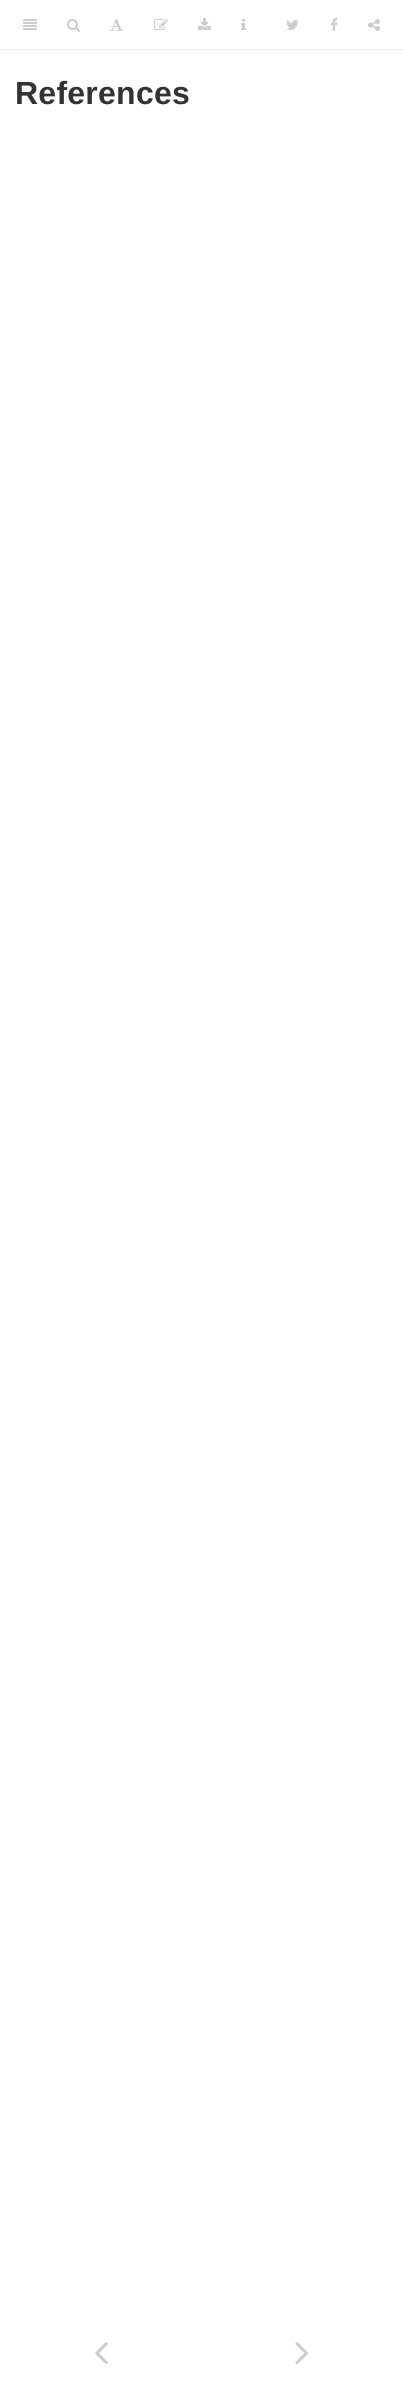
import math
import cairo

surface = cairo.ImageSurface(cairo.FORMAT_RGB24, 403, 2400)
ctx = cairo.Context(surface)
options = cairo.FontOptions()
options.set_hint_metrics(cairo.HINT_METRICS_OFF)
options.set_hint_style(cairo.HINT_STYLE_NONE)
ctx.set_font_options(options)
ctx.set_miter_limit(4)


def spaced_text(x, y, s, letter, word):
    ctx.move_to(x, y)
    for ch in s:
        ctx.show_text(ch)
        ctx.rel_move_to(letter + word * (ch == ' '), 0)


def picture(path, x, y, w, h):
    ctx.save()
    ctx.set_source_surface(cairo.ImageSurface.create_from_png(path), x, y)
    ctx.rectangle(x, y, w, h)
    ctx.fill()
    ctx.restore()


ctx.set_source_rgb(1, 1, 1)
ctx.paint()
ctx.set_source_rgb(0.929, 0.929, 0.929)
ctx.rectangle(0, 49, 403, 1)
ctx.fill()
picture("img1.png", 23, 19, 14, 11)
picture("img2.png", 67, 19, 13, 13)
picture("img3.png", 110, 19, 13, 12)
picture("img4.png", 154, 19, 14, 11)
picture("img5.png", 198, 18, 13, 12)
picture("img6.png", 241, 19, 5, 11)
picture("img7.png", 286, 20, 13, 10)
picture("img8.png", 330, 18, 8, 13)
picture("img9.png", 368, 19, 12, 12)
ctx.select_font_face("Liberation Sans", cairo.FONT_SLANT_NORMAL, cairo.FONT_WEIGHT_BOLD)
ctx.set_font_size(32)
ctx.set_source_rgb(0.2, 0.2, 0.2)
spaced_text(15, 104, "References", 0.25, 0)
picture("img10.png", 95, 2342, 13, 23)
picture("img11.png", 295, 2342, 14, 23)
surface.write_to_png("page.png")
